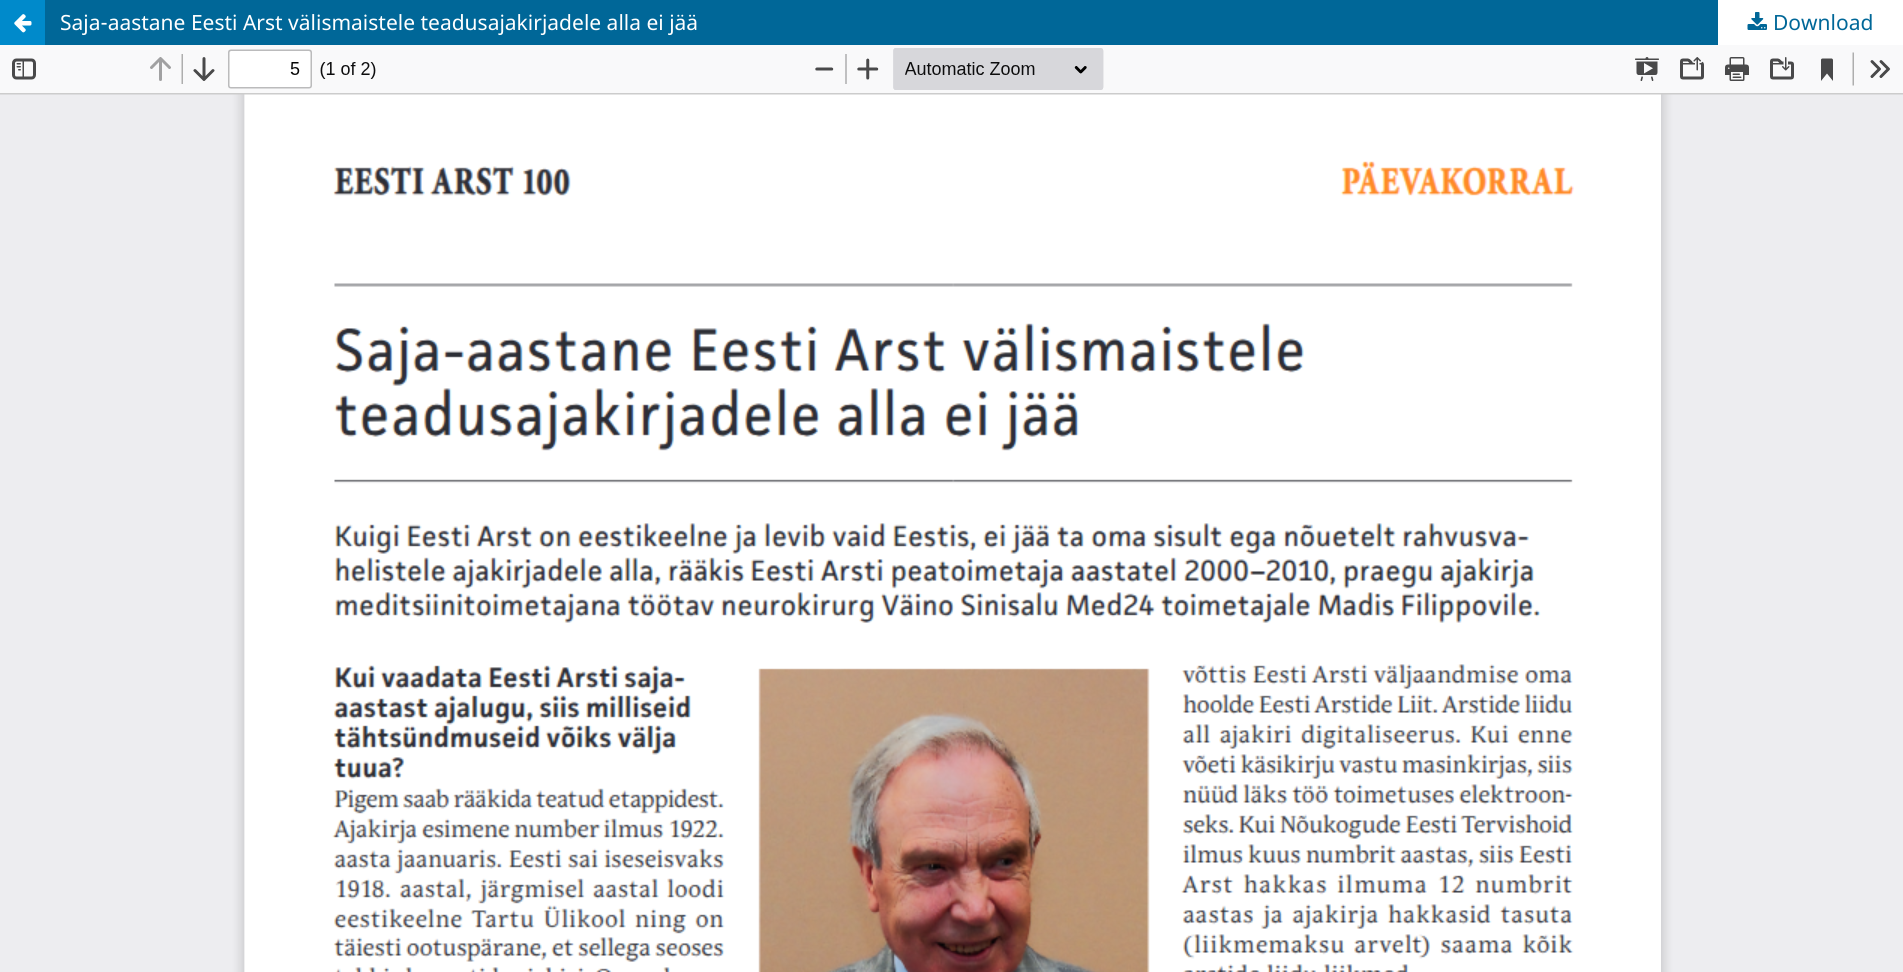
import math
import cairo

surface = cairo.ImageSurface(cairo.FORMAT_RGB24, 1903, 972)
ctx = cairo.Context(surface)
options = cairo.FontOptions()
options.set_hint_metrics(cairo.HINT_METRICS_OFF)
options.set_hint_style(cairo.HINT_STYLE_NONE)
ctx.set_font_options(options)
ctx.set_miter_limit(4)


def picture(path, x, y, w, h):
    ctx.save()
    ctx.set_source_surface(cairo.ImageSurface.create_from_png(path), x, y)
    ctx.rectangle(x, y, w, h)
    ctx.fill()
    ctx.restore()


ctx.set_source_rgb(1, 1, 1)
ctx.paint()
ctx.set_source_rgb(0, 0.404, 0.596)
ctx.rectangle(45, 0, 1673, 45)
ctx.fill()
ctx.set_source_rgb(0, 0.541, 0.796)
ctx.rectangle(0, 0, 45, 45)
ctx.fill()
picture("img1.png", 14, 14, 18, 19)
ctx.select_font_face("Noto Sans")
ctx.set_font_size(21)
ctx.set_source_rgb(1, 1, 1)
ctx.move_to(60, 30)
ctx.show_text("Saja-aastane Eesti Arst välismaistele teadusajakirjadele alla ei jää")
picture("img2.png", 1747, 12, 20, 18)
ctx.set_source_rgb(0, 0.404, 0.596)
ctx.move_to(1773, 30)
ctx.show_text("Download")
picture("img3.png", 0, 45, 1903, 927)
surface.write_to_png("page.png")
